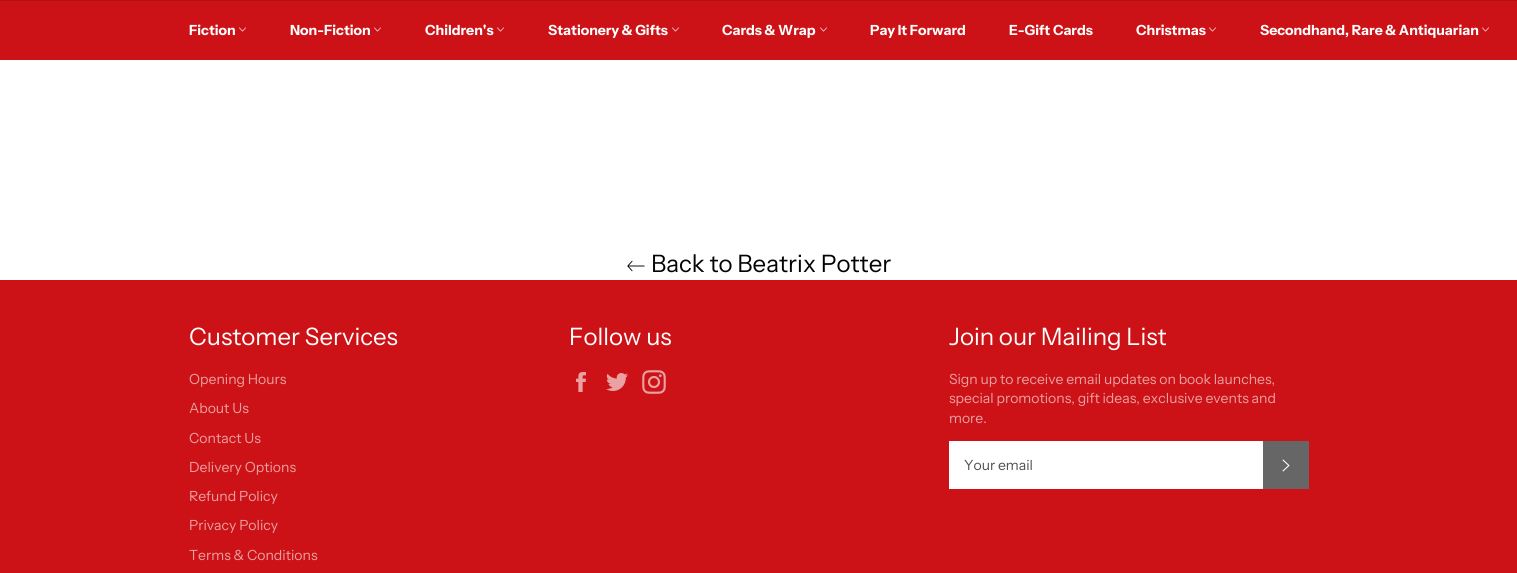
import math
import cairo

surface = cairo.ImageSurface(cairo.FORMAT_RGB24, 1517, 573)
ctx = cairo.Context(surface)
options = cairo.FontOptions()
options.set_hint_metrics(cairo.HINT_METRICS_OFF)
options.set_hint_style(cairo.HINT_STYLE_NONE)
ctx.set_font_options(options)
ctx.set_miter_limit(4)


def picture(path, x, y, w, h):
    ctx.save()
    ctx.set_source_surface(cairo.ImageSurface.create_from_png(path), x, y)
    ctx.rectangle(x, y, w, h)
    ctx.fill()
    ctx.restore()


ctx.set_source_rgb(1, 1, 1)
ctx.paint()
ctx.set_source_rgb(0.8, 0.071, 0.086)
ctx.rectangle(0, 1, 1517, 59)
ctx.fill()
ctx.set_source_rgb(0.71, 0.063, 0.075)
ctx.rectangle(0, 0, 1517, 1)
ctx.fill()
ctx.select_font_face("Instrument Sans", cairo.FONT_SLANT_NORMAL, cairo.FONT_WEIGHT_BOLD)
ctx.set_font_size(14)
ctx.set_source_rgb(1, 1, 1)
ctx.move_to(189, 35)
ctx.show_text("Fiction")
picture("img1.png", 239, 27, 7, 5)
ctx.move_to(290, 35)
ctx.show_text("Non-Fiction")
picture("img1.png", 374, 27, 7, 5)
ctx.move_to(425, 35)
ctx.show_text("Children's")
picture("img1.png", 497, 27, 7, 5)
ctx.move_to(548, 35)
ctx.show_text("Stationery & Gifts")
picture("img1.png", 672, 27, 7, 5)
ctx.move_to(722, 35)
ctx.show_text("Cards & Wrap")
picture("img1.png", 820, 27, 7, 5)
ctx.move_to(870, 35)
ctx.show_text("Pay It Forward")
ctx.move_to(1009, 35)
ctx.show_text("E-Gift Cards")
ctx.move_to(1136, 35)
ctx.show_text("Christmas")
picture("img1.png", 1209, 27, 7, 5)
ctx.move_to(1260, 35)
ctx.show_text("Secondhand, Rare & Antiquarian")
picture("img1.png", 1482, 27, 7, 5)
picture("img2.png", 627, 260, 18, 12)
ctx.select_font_face("Instrument Sans")
ctx.set_font_size(24)
ctx.set_source_rgb(0.012, 0.012, 0.012)
ctx.move_to(651, 272)
ctx.show_text("Back to Beatrix Potter")
ctx.set_source_rgb(0.8, 0.071, 0.086)
ctx.rectangle(0, 280, 1517, 293)
ctx.fill()
ctx.set_source_rgb(1, 1, 1)
ctx.move_to(189, 345)
ctx.show_text("Customer Services")
ctx.set_font_size(14)
ctx.set_source_rgb(0.922, 0.627, 0.635)
ctx.move_to(189, 384)
ctx.show_text("Opening Hours")
ctx.move_to(189, 413)
ctx.show_text("About Us")
ctx.move_to(189, 443)
ctx.show_text("Contact Us")
ctx.move_to(189, 472)
ctx.show_text("Delivery Options")
ctx.move_to(189, 501)
ctx.show_text("Refund Policy")
ctx.move_to(189, 530)
ctx.show_text("Privacy Policy")
ctx.move_to(189, 560)
ctx.show_text("Terms & Conditions")
ctx.set_font_size(24)
ctx.set_source_rgb(1, 1, 1)
ctx.move_to(569, 345)
ctx.show_text("Follow us")
picture("img3.png", 576, 372, 10, 20)
picture("img4.png", 606, 373, 22, 18)
picture("img5.png", 642, 370, 24, 24)
ctx.move_to(949, 345)
ctx.show_text("Join our Mailing List")
ctx.set_font_size(14)
ctx.set_source_rgb(0.922, 0.627, 0.635)
ctx.move_to(949, 384)
ctx.show_text("Sign up to receive email updates on book launches,")
ctx.move_to(949, 403)
ctx.show_text("special promotions, gift ideas, exclusive events and")
ctx.move_to(949, 423)
ctx.show_text("more.")
ctx.set_source_rgb(1, 1, 1)
ctx.rectangle(949, 441, 314, 48)
ctx.fill()
ctx.set_source_rgb(0.31, 0.31, 0.31)
ctx.move_to(964, 470)
ctx.show_text("Your email")
ctx.set_source_rgb(0.4, 0.4, 0.4)
ctx.rectangle(1263, 441, 46, 48)
ctx.fill()
picture("img6.png", 1282, 459, 8, 13)
surface.write_to_png("page.png")
